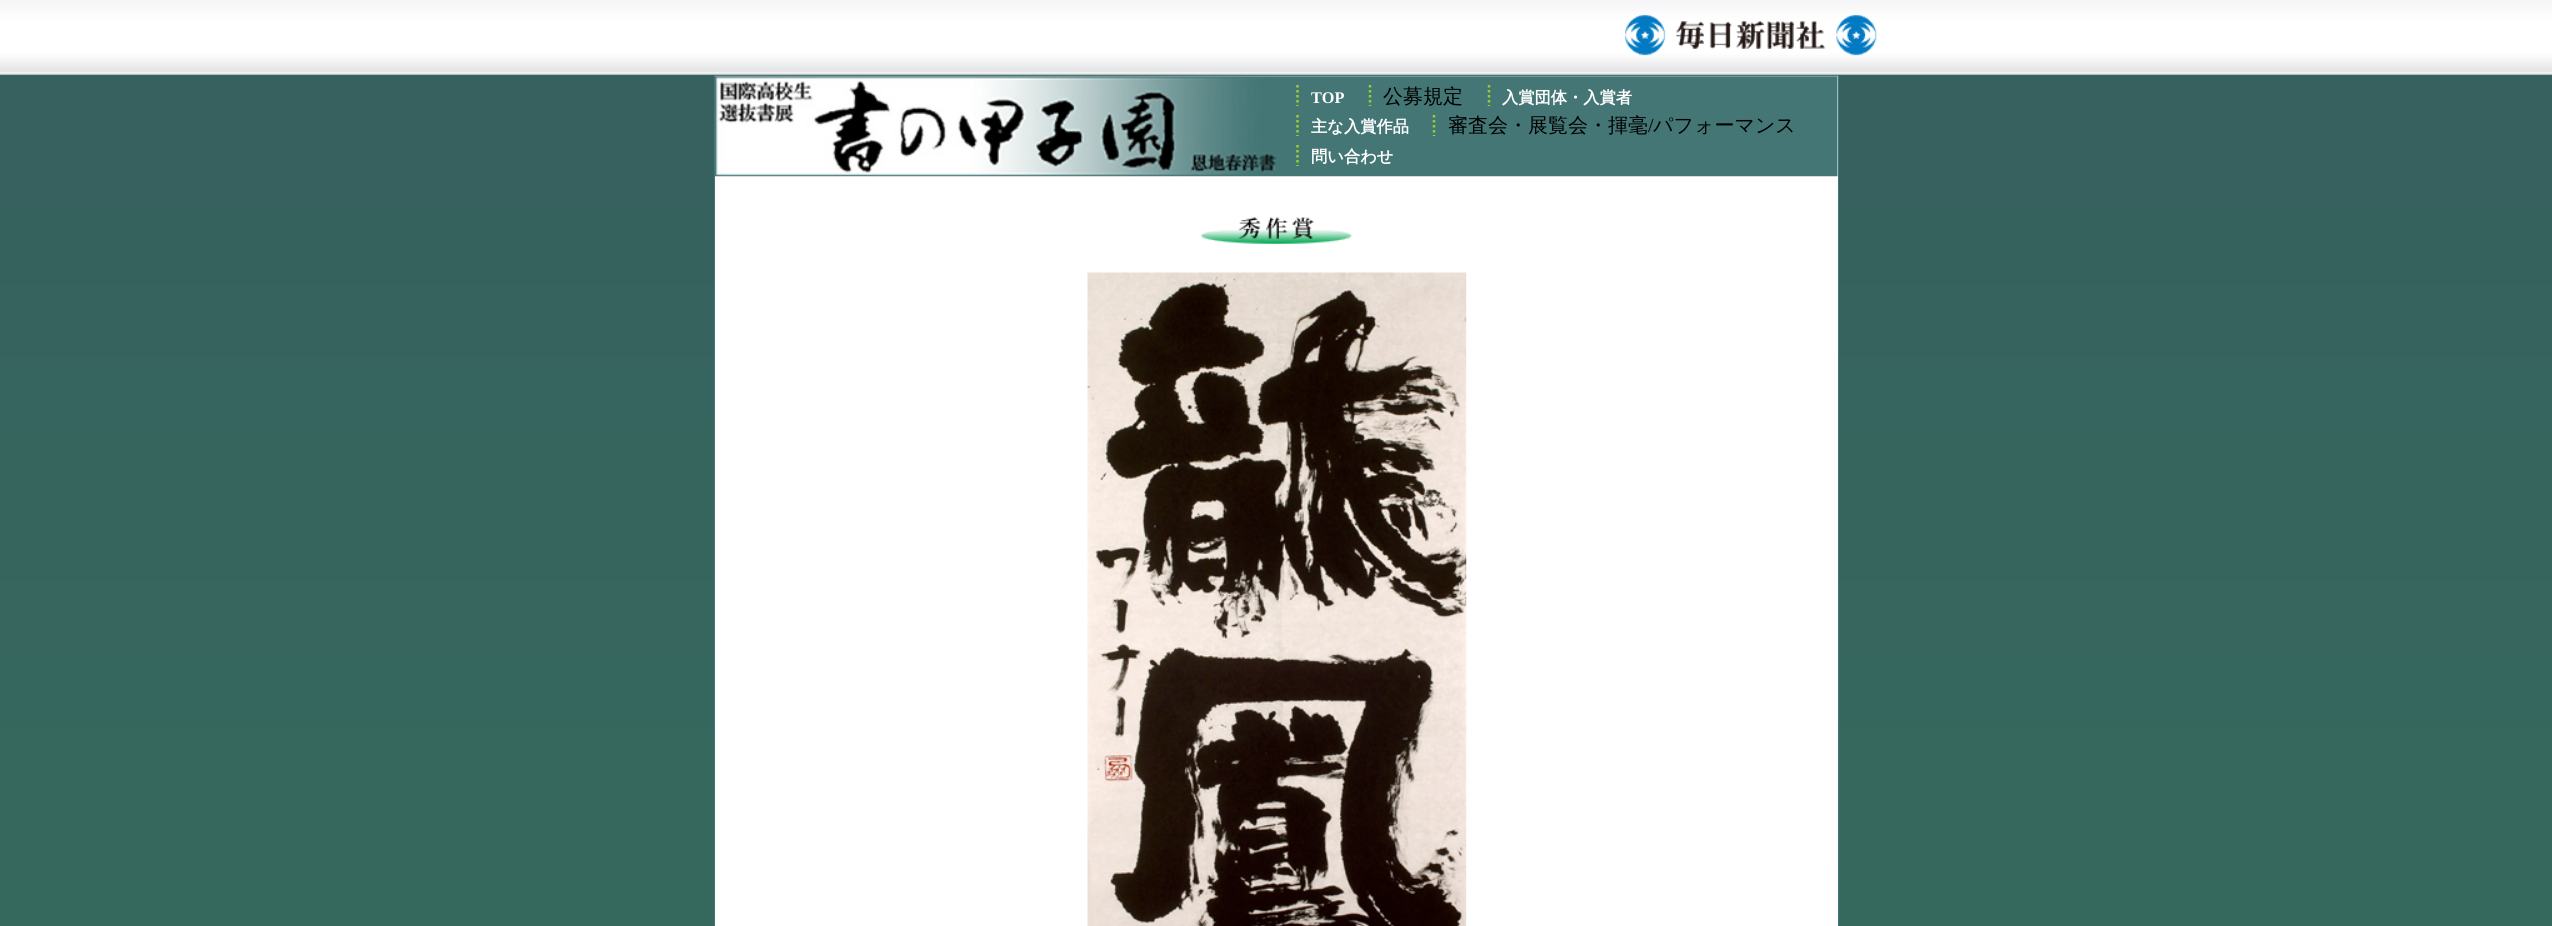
import math
import cairo

surface = cairo.ImageSurface(cairo.FORMAT_RGB24, 2552, 926)
ctx = cairo.Context(surface)
options = cairo.FontOptions()
options.set_hint_metrics(cairo.HINT_METRICS_OFF)
options.set_hint_style(cairo.HINT_STYLE_NONE)
ctx.set_font_options(options)
ctx.set_miter_limit(4)


def picture(path, x, y, w, h):
    ctx.save()
    ctx.set_source_surface(cairo.ImageSurface.create_from_png(path), x, y)
    ctx.rectangle(x, y, w, h)
    ctx.fill()
    ctx.restore()


ctx.set_source_rgb(1, 1, 1)
ctx.paint()
picture("img1.png", 0, 0, 2552, 75)
picture("img2.png", 1624, 14, 253, 42)
picture("img3.png", 0, 75, 2552, 851)
ctx.set_source_rgb(1, 1, 1)
ctx.rectangle(714.5, 75.5, 1124, 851)
ctx.fill_preserve()
ctx.set_source_rgb(0.267, 0.463, 0.463)
ctx.set_line_width(1)
ctx.stroke()
picture("img4.png", 715, 76, 1123, 101)
ctx.select_font_face("Liberation Serif", cairo.FONT_SLANT_NORMAL, cairo.FONT_WEIGHT_BOLD)
ctx.set_font_size(16.25)
ctx.set_source_rgb(1, 1, 1)
ctx.move_to(1311, 103)
ctx.show_text("TOP")
ctx.new_path()
ctx.move_to(1297.5, 85)
ctx.line_to(1297.5, 106)
ctx.set_source_rgb(0.6, 0.8, 0.2)
ctx.set_line_width(2.5)
ctx.set_dash([2.5, 2.5])
ctx.stroke()
ctx.select_font_face("WenQuanYi Zen Hei Medium")
ctx.set_font_size(20)
ctx.set_source_rgb(0, 0, 0)
ctx.move_to(1383, 103)
ctx.show_text("公募規定")
ctx.new_path()
ctx.move_to(1370, 85)
ctx.line_to(1370, 106)
ctx.set_source_rgb(0.6, 0.8, 0.2)
ctx.stroke()
ctx.select_font_face("WenQuanYi Zen Hei", cairo.FONT_SLANT_NORMAL, cairo.FONT_WEIGHT_BOLD)
ctx.set_font_size(16.25)
ctx.set_source_rgb(1, 1, 1)
ctx.move_to(1502, 103)
ctx.show_text("入賞団体・入賞者")
ctx.new_path()
ctx.move_to(1489, 85)
ctx.line_to(1489, 106)
ctx.set_source_rgb(0.6, 0.8, 0.2)
ctx.stroke()
ctx.set_source_rgb(1, 1, 1)
ctx.move_to(1311, 132)
ctx.show_text("主な入賞作品")
ctx.new_path()
ctx.move_to(1297.5, 115)
ctx.line_to(1297.5, 136)
ctx.set_source_rgb(0.6, 0.8, 0.2)
ctx.stroke()
ctx.select_font_face("WenQuanYi Zen Hei Medium")
ctx.set_font_size(20)
ctx.set_source_rgb(0, 0, 0)
ctx.move_to(1448, 132)
ctx.show_text("審査会・展覧会・揮毫")
ctx.new_path()
ctx.move_to(1434, 115)
ctx.line_to(1434, 136)
ctx.set_source_rgb(0.6, 0.8, 0.2)
ctx.stroke()
ctx.select_font_face("Liberation Serif")
ctx.set_source_rgb(0, 0, 0)
ctx.move_to(1648, 132)
ctx.show_text("/")
ctx.select_font_face("WenQuanYi Zen Hei Medium")
ctx.move_to(1653, 132)
ctx.show_text("パフォーマンス")
ctx.select_font_face("WenQuanYi Zen Hei", cairo.FONT_SLANT_NORMAL, cairo.FONT_WEIGHT_BOLD)
ctx.set_font_size(16.25)
ctx.set_source_rgb(1, 1, 1)
ctx.move_to(1311, 162)
ctx.show_text("問い合わせ")
ctx.new_path()
ctx.move_to(1297.5, 145)
ctx.line_to(1297.5, 166)
ctx.set_source_rgb(0.6, 0.8, 0.2)
ctx.stroke()
picture("img5.png", 1201, 217, 151, 27)
picture("img6.png", 1087, 272, 380, 654)
surface.write_to_png("page.png")
